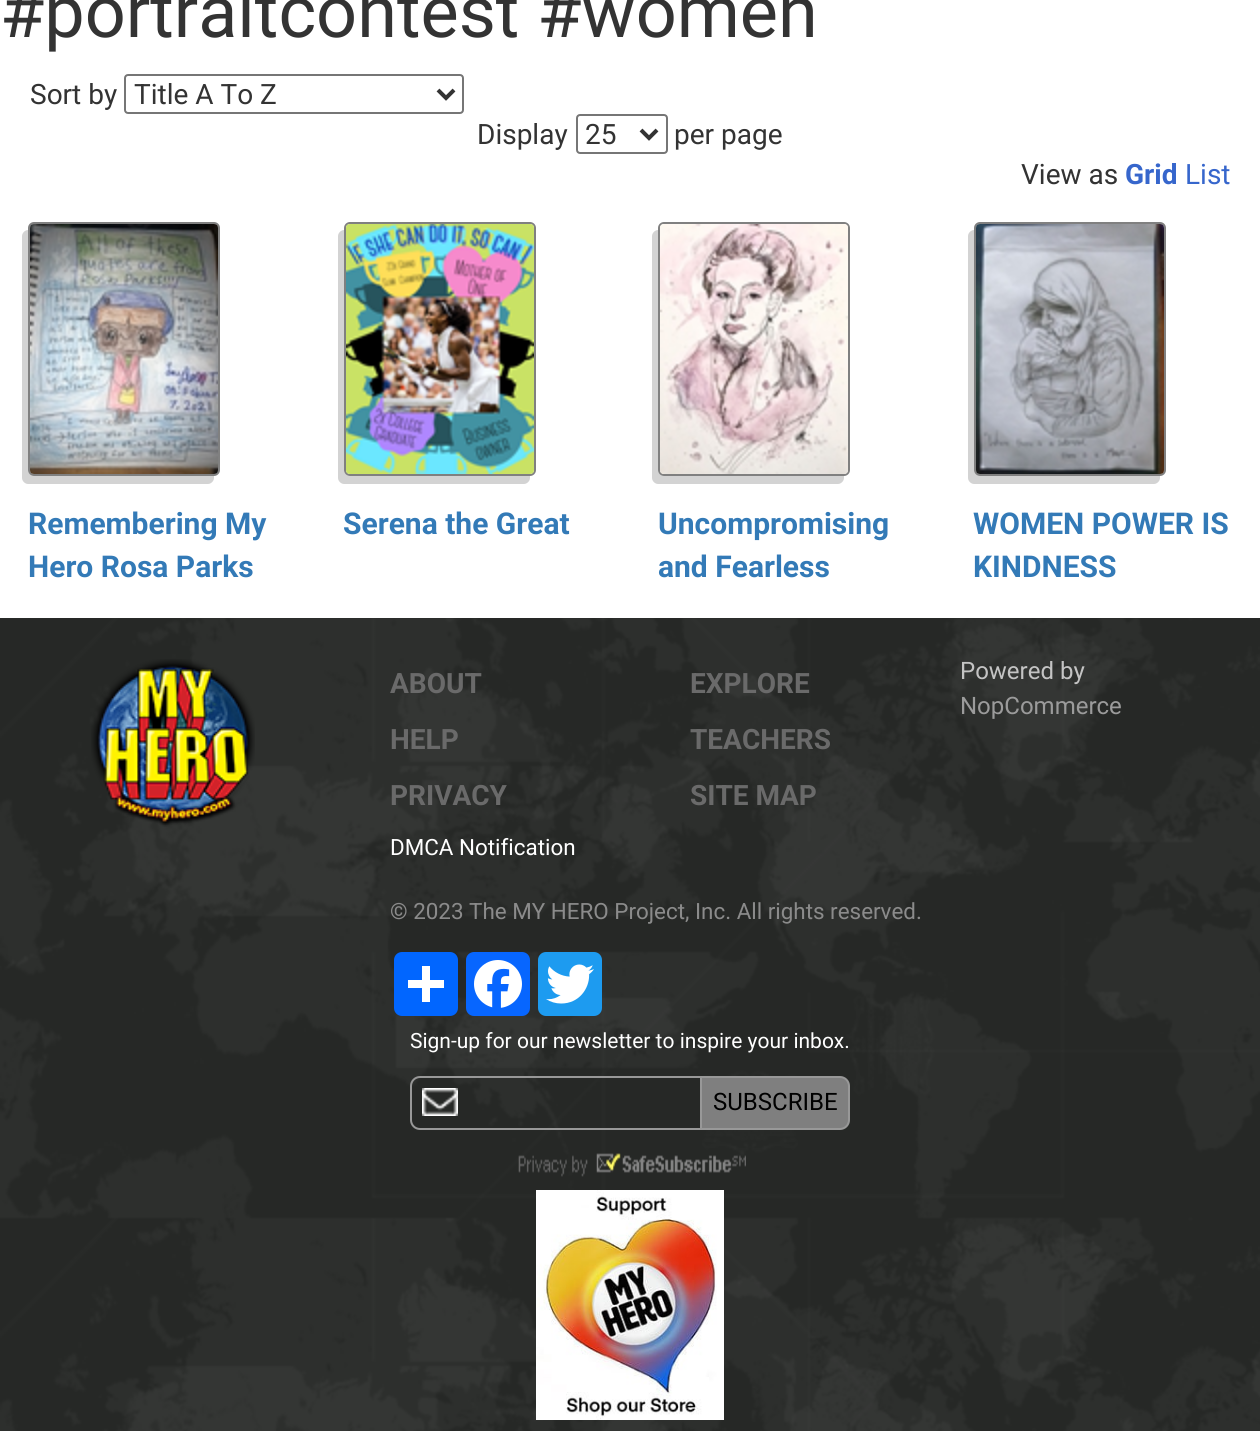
import math
import cairo

surface = cairo.ImageSurface(cairo.FORMAT_RGB24, 1260, 1431)
ctx = cairo.Context(surface)
options = cairo.FontOptions()
options.set_hint_metrics(cairo.HINT_METRICS_OFF)
options.set_hint_style(cairo.HINT_STYLE_NONE)
ctx.set_font_options(options)
ctx.set_miter_limit(4)


def round_rect(x, y, w, h, r):
    ctx.new_sub_path()
    for i, (u, v) in enumerate([(x + w - r, y + h - r), (x + r, y + h - r), (x + r, y + r), (x + w - r, y + r)]):
        ctx.arc(u, v, r, i * math.pi / 2, (i + 1) * math.pi / 2)
    ctx.close_path()


def picture(path, x, y, w, h):
    ctx.save()
    ctx.set_source_surface(cairo.ImageSurface.create_from_png(path), x, y)
    ctx.rectangle(x, y, w, h)
    ctx.fill()
    ctx.restore()


ctx.set_source_rgb(1, 1, 1)
ctx.paint()
ctx.select_font_face("Roboto")
ctx.set_font_size(72)
ctx.set_source_rgb(0.2, 0.2, 0.2)
ctx.move_to(0, 37)
ctx.show_text("#portraitcontest #women")
ctx.set_font_size(28)
ctx.move_to(30, 104)
ctx.show_text("Sort by")
round_rect(125, 75, 338, 38, 3)
ctx.set_source_rgb(0.463, 0.463, 0.463)
ctx.stroke()
ctx.new_path()
ctx.move_to(438, 90)
ctx.line_to(446, 98)
ctx.line_to(454, 90)
ctx.set_source_rgb(0.2, 0.2, 0.2)
ctx.set_line_width(4)
ctx.stroke()
ctx.move_to(134, 104)
ctx.show_text("Title A To Z")
ctx.move_to(477, 144)
ctx.show_text("Display")
round_rect(577, 115, 90, 38, 3)
ctx.set_source_rgb(0.463, 0.463, 0.463)
ctx.set_line_width(2)
ctx.stroke()
ctx.new_path()
ctx.move_to(641, 130)
ctx.line_to(649, 138)
ctx.line_to(657, 130)
ctx.set_source_rgb(0.2, 0.2, 0.2)
ctx.set_line_width(4)
ctx.stroke()
ctx.move_to(585, 144)
ctx.show_text("25")
ctx.move_to(674, 144)
ctx.show_text("per page")
ctx.move_to(1021, 184)
ctx.show_text("View as")
ctx.select_font_face("Roboto", cairo.FONT_SLANT_NORMAL, cairo.FONT_WEIGHT_BOLD)
ctx.set_source_rgb(0.212, 0.4, 0.8)
ctx.move_to(1125, 184)
ctx.show_text("Grid")
ctx.select_font_face("Roboto")
ctx.move_to(1185, 184)
ctx.show_text("List")
ctx.set_source_rgb(0.827, 0.827, 0.827)
ctx.new_path()
ctx.move_to(28, 230)
ctx.curve_to(25, 230, 22, 233, 22, 236)
ctx.line_to(22, 478)
ctx.curve_to(22, 481, 25, 484, 28, 484)
ctx.line_to(208, 484)
ctx.curve_to(211, 484, 214, 481, 214, 478)
ctx.line_to(214, 476)
ctx.line_to(34, 476)
ctx.curve_to(31, 476, 28, 473, 28, 470)
ctx.close_path()
ctx.fill()
round_rect(29, 223, 190, 252, 5)
ctx.set_source_rgb(0.502, 0.502, 0.502)
ctx.set_line_width(2)
ctx.stroke()
picture("img1.png", 30, 224, 188, 250)
ctx.select_font_face("Roboto", cairo.FONT_SLANT_NORMAL, cairo.FONT_WEIGHT_BOLD)
ctx.set_font_size(30)
ctx.set_source_rgb(0.2, 0.478, 0.718)
ctx.move_to(28, 534)
ctx.show_text("Remembering My")
ctx.move_to(28, 577)
ctx.show_text("Hero Rosa Parks")
ctx.set_source_rgb(0.827, 0.827, 0.827)
ctx.new_path()
ctx.move_to(344, 230)
ctx.curve_to(341, 230, 338, 233, 338, 236)
ctx.line_to(338, 478)
ctx.curve_to(338, 481, 341, 484, 344, 484)
ctx.line_to(524, 484)
ctx.curve_to(527, 484, 530, 481, 530, 478)
ctx.line_to(530, 476)
ctx.line_to(350, 476)
ctx.curve_to(347, 476, 344, 473, 344, 470)
ctx.close_path()
ctx.fill()
round_rect(345, 223, 190, 252, 5)
ctx.set_source_rgb(0.502, 0.502, 0.502)
ctx.stroke()
picture("img2.png", 346, 224, 188, 250)
ctx.set_source_rgb(0.2, 0.478, 0.718)
ctx.move_to(343, 534)
ctx.show_text("Serena the Great")
ctx.set_source_rgb(0.827, 0.827, 0.827)
ctx.new_path()
ctx.move_to(658, 230)
ctx.curve_to(655, 230, 652, 233, 652, 236)
ctx.line_to(652, 478)
ctx.curve_to(652, 481, 655, 484, 658, 484)
ctx.line_to(838, 484)
ctx.curve_to(841, 484, 844, 481, 844, 478)
ctx.line_to(844, 476)
ctx.line_to(664, 476)
ctx.curve_to(661, 476, 658, 473, 658, 470)
ctx.close_path()
ctx.fill()
round_rect(659, 223, 190, 252, 5)
ctx.set_source_rgb(0.502, 0.502, 0.502)
ctx.stroke()
picture("img3.png", 660, 224, 188, 250)
ctx.set_source_rgb(0.2, 0.478, 0.718)
ctx.move_to(658, 534)
ctx.show_text("Uncompromising")
ctx.move_to(658, 577)
ctx.show_text("and Fearless")
ctx.set_source_rgb(0.827, 0.827, 0.827)
ctx.new_path()
ctx.move_to(974, 230)
ctx.curve_to(971, 230, 968, 233, 968, 236)
ctx.line_to(968, 478)
ctx.curve_to(968, 481, 971, 484, 974, 484)
ctx.line_to(1154, 484)
ctx.curve_to(1157, 484, 1160, 481, 1160, 478)
ctx.line_to(1160, 476)
ctx.line_to(980, 476)
ctx.curve_to(977, 476, 974, 473, 974, 470)
ctx.close_path()
ctx.fill()
round_rect(975, 223, 190, 252, 5)
ctx.set_source_rgb(0.502, 0.502, 0.502)
ctx.stroke()
picture("img4.png", 976, 224, 188, 250)
ctx.set_source_rgb(0.2, 0.478, 0.718)
ctx.move_to(973, 534)
ctx.show_text("WOMEN POWER IS")
ctx.move_to(973, 577)
ctx.show_text("KINDNESS")
picture("img5.png", 0, 618, 1260, 813)
picture("img6.png", 91, 659, 164, 168)
ctx.set_font_size(28)
ctx.set_source_rgb(0.416, 0.416, 0.416)
ctx.move_to(390, 693)
ctx.show_text("ABOUT")
ctx.move_to(390, 749)
ctx.show_text("HELP")
ctx.move_to(390, 805)
ctx.show_text("PRIVACY")
ctx.move_to(690, 693)
ctx.show_text("EXPLORE")
ctx.move_to(690, 749)
ctx.show_text("TEACHERS")
ctx.move_to(690, 805)
ctx.show_text("SITE MAP")
ctx.select_font_face("Roboto")
ctx.set_font_size(24)
ctx.set_source_rgb(0.769, 0.769, 0.769)
ctx.move_to(960, 679)
ctx.show_text("Powered by")
ctx.set_source_rgb(0.608, 0.608, 0.608)
ctx.move_to(960, 714)
ctx.show_text("NopCommerce")
ctx.set_font_size(22.4)
ctx.set_source_rgb(1, 1, 1)
ctx.move_to(390, 855)
ctx.show_text("DMCA Notification")
ctx.set_source_rgb(0.545, 0.545, 0.545)
ctx.move_to(390, 919)
ctx.show_text("© 2023 The MY HERO Project, Inc. All rights reserved.")
ctx.set_source_rgb(0.004, 0.4, 1)
round_rect(394, 952, 64, 64, 8)
ctx.fill()
ctx.set_source_rgb(1, 1, 1)
ctx.rectangle(422, 966, 8, 36)
ctx.fill()
ctx.rectangle(408, 980, 36, 8)
ctx.fill()
ctx.set_source_rgb(0.031, 0.4, 1)
round_rect(466, 952, 64, 64, 8)
ctx.fill()
picture("img7.png", 474, 960, 48, 48)
ctx.set_source_rgb(0.114, 0.608, 0.941)
round_rect(538, 952, 64, 64, 8)
ctx.fill()
picture("img8.png", 546, 964, 48, 40)
ctx.set_font_size(21)
ctx.set_source_rgb(1, 1, 1)
ctx.move_to(410, 1048)
ctx.show_text("Sign-up for our newsletter to inspire your inbox.")
picture("img9.png", 422, 1088, 36, 28)
ctx.new_path()
ctx.move_to(420, 1077)
ctx.line_to(709, 1077)
ctx.line_to(709, 1129)
ctx.line_to(420, 1129)
ctx.curve_to(415, 1129, 411, 1125, 411, 1120)
ctx.line_to(411, 1086)
ctx.curve_to(411, 1081, 415, 1077, 420, 1077)
ctx.close_path()
ctx.set_source_rgb(0.596, 0.596, 0.596)
ctx.stroke()
ctx.set_source_rgb(0.498, 0.498, 0.498)
ctx.new_path()
ctx.move_to(701, 1077)
ctx.line_to(840, 1077)
ctx.curve_to(845, 1077, 849, 1081, 849, 1086)
ctx.line_to(849, 1120)
ctx.curve_to(849, 1125, 845, 1129, 840, 1129)
ctx.line_to(701, 1129)
ctx.close_path()
ctx.fill_preserve()
ctx.set_source_rgb(0.596, 0.596, 0.596)
ctx.stroke()
ctx.set_font_size(24)
ctx.set_source_rgb(0, 0, 0)
ctx.move_to(713, 1110)
ctx.show_text("SUBSCRIBE")
picture("img10.png", 518, 1153, 228, 24)
picture("img11.png", 536, 1190, 188, 230)
surface.write_to_png("page.png")
